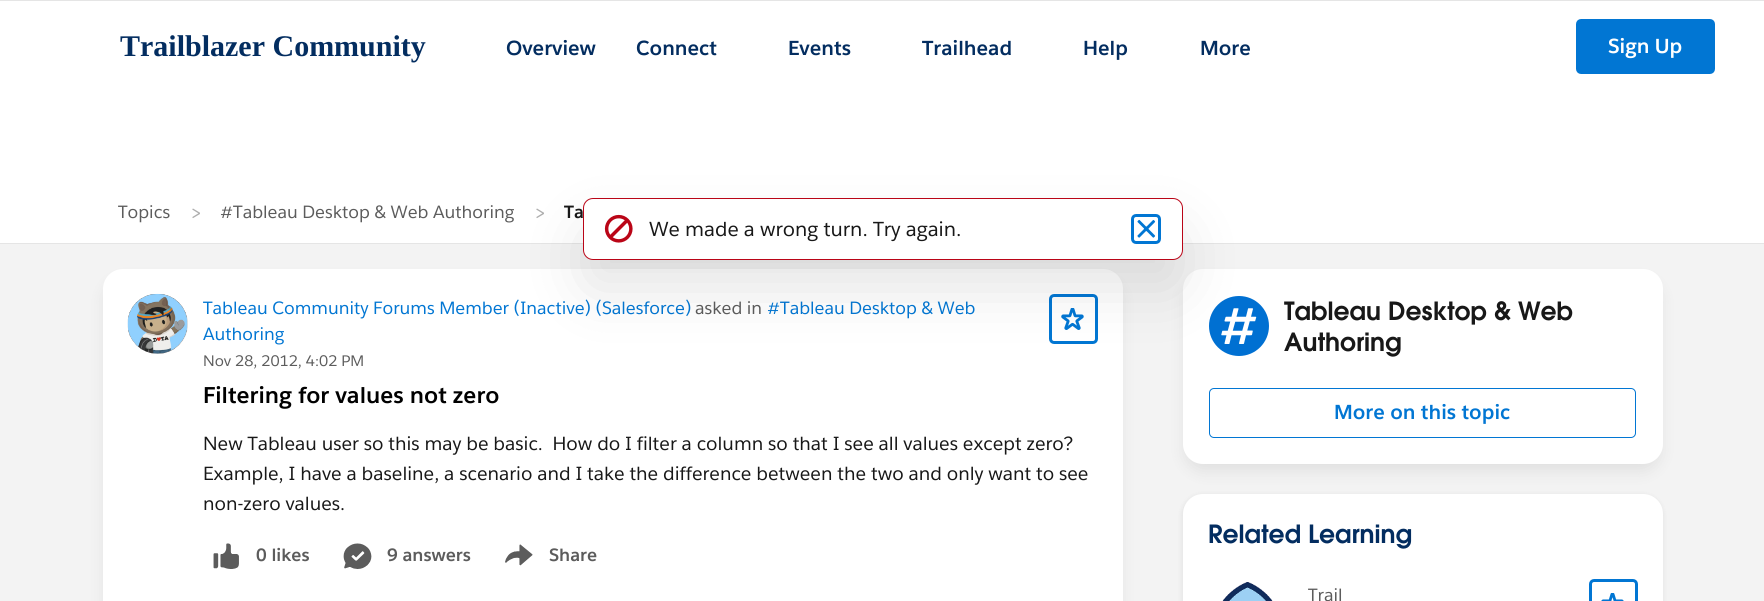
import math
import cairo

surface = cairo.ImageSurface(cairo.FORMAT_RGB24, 1764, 601)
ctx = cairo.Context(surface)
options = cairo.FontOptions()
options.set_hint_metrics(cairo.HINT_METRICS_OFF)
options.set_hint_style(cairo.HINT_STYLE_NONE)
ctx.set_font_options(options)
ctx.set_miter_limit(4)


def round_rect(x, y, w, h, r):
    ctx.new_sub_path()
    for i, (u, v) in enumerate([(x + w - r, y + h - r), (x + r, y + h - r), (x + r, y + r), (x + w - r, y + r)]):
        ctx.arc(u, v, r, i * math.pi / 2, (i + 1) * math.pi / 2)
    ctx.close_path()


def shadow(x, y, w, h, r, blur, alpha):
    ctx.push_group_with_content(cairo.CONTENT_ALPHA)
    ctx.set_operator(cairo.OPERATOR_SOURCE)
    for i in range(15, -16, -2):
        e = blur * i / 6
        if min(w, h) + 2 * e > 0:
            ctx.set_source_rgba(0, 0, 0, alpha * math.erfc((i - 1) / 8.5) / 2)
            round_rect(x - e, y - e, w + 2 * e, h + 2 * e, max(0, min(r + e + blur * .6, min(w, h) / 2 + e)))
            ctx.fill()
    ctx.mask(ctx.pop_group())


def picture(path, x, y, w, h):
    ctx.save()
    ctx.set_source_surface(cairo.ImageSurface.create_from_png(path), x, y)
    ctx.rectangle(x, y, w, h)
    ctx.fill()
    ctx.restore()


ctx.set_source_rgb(1, 1, 1)
ctx.paint()
ctx.set_source_rgb(0.898, 0.898, 0.898)
ctx.rectangle(0, 0, 1764, 1)
ctx.fill()
ctx.select_font_face("Liberation Serif", cairo.FONT_SLANT_NORMAL, cairo.FONT_WEIGHT_BOLD)
ctx.set_font_size(30)
ctx.set_source_rgb(0.012, 0.176, 0.376)
ctx.move_to(120, 56)
ctx.show_text("Trailblazer Community")
ctx.select_font_face("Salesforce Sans", cairo.FONT_SLANT_NORMAL, cairo.FONT_WEIGHT_BOLD)
ctx.set_font_size(20)
ctx.move_to(506, 55)
ctx.show_text("Overview")
ctx.move_to(636, 55)
ctx.show_text("Connect")
ctx.move_to(788, 55)
ctx.show_text("Events")
ctx.move_to(922, 55)
ctx.show_text("Trailhead")
ctx.move_to(1083, 55)
ctx.show_text("Help")
ctx.move_to(1200, 55)
ctx.show_text("More")
ctx.set_source_rgb(0.004, 0.463, 0.827)
round_rect(1577.5, 20.5, 136, 52, 3.5)
ctx.fill_preserve()
ctx.set_line_width(3)
ctx.stroke()
ctx.set_source_rgb(1, 1, 1)
ctx.move_to(1608, 53)
ctx.show_text("Sign Up")
ctx.set_source_rgb(0.953, 0.953, 0.953)
ctx.rectangle(0, 244, 1764, 357)
ctx.fill()
ctx.set_source_rgb(0.898, 0.898, 0.898)
ctx.rectangle(0, 243, 1764, 1)
ctx.fill()
ctx.select_font_face("Salesforce Sans")
ctx.set_font_size(17.5)
ctx.set_source_rgb(0.361, 0.361, 0.361)
ctx.move_to(118, 218)
ctx.show_text("Topics")
ctx.set_font_size(20)
ctx.set_source_rgb(0.682, 0.682, 0.682)
ctx.move_to(190, 219)
ctx.show_text(">")
ctx.set_font_size(17.5)
ctx.set_source_rgb(0.361, 0.361, 0.361)
ctx.move_to(220, 218)
ctx.show_text("#Tableau Desktop & Web Authoring")
ctx.set_font_size(20)
ctx.set_source_rgb(0.682, 0.682, 0.682)
ctx.move_to(534, 219)
ctx.show_text(">")
ctx.select_font_face("Salesforce Sans", cairo.FONT_SLANT_NORMAL, cairo.FONT_WEIGHT_BOLD)
ctx.set_font_size(17.5)
ctx.set_source_rgb(0.094, 0.094, 0.094)
ctx.move_to(564, 218)
ctx.show_text("Ta")
ctx.set_source_rgb(0.094, 0.094, 0.094)
shadow(105, 281, 1015, 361, 18, 7.5, 0.09)
ctx.set_source_rgb(1, 1, 1)
round_rect(103, 269, 1020, 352, 20)
ctx.fill()
ctx.set_source_rgb(0.898, 0.898, 0.898)
ctx.arc(158, 324, 30, 0, 2 * math.pi)
ctx.fill()
picture("img1.png", 127, 293, 61, 61)
ctx.select_font_face("Salesforce Sans")
ctx.set_source_rgb(0.004, 0.463, 0.827)
ctx.move_to(203, 314)
ctx.show_text("Tableau Community Forums Member (Inactive) (Salesforce)")
ctx.set_source_rgb(0.361, 0.361, 0.361)
ctx.move_to(695, 314)
ctx.show_text("asked in")
ctx.set_source_rgb(0.004, 0.463, 0.827)
ctx.move_to(767, 314)
ctx.show_text("#Tableau Desktop & Web")
ctx.move_to(203, 340)
ctx.show_text("Authoring")
round_rect(1050.5, 295.5, 46, 47, 3.5)
ctx.stroke()
picture("img2.png", 1061, 308, 23, 22)
ctx.set_font_size(15)
ctx.set_source_rgb(0.361, 0.361, 0.361)
ctx.move_to(203, 366)
ctx.show_text("Nov 28, 2012, 4:02 PM")
ctx.select_font_face("Salesforce Sans", cairo.FONT_SLANT_NORMAL, cairo.FONT_WEIGHT_BOLD)
ctx.set_font_size(22.5)
ctx.set_source_rgb(0, 0, 0)
ctx.move_to(203, 403)
ctx.show_text("Filtering for values not zero")
ctx.select_font_face("Salesforce Sans")
ctx.set_font_size(18.75)
ctx.set_source_rgb(0.094, 0.094, 0.094)
ctx.move_to(203, 450)
ctx.show_text("New Tableau user so this may be basic.  How do I filter a column so that I see all values except zero?")
ctx.move_to(203, 480)
ctx.show_text("Example, I have a baseline, a scenario and I take the difference between the two and only want to see")
ctx.move_to(203, 510)
ctx.show_text("non-zero values.")
picture("img3.png", 213, 543, 26, 26)
ctx.select_font_face("Salesforce Sans", cairo.FONT_SLANT_NORMAL, cairo.FONT_WEIGHT_BOLD)
ctx.set_font_size(17.5)
ctx.set_source_rgb(0.361, 0.361, 0.361)
ctx.move_to(256, 561)
ctx.show_text("0 likes")
picture("img4.png", 343, 543, 29, 26)
ctx.move_to(387, 561)
ctx.show_text("9 answers")
picture("img5.png", 505, 544, 28, 22)
ctx.move_to(549, 561)
ctx.show_text("Share")
ctx.set_source_rgb(0.094, 0.094, 0.094)
shadow(1181, 494, 483, 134, 21, 2, 0.06)
ctx.set_source_rgb(1, 1, 1)
round_rect(1183, 494, 480, 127, 20)
ctx.fill()
ctx.set_source_rgb(0.094, 0.094, 0.094)
shadow(1185, 281, 475, 190, 18, 7.5, 0.09)
ctx.set_source_rgb(1, 1, 1)
round_rect(1183, 269, 480, 195, 20)
ctx.fill()
ctx.set_source_rgb(0, 0.439, 0.824)
ctx.arc(1239, 326, 30, 0, 2 * math.pi)
ctx.fill()
picture("img6.png", 1221, 308, 36, 36)
ctx.select_font_face("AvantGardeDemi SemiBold")
ctx.set_font_size(25)
ctx.set_source_rgb(0.094, 0.094, 0.094)
ctx.move_to(1284, 320)
ctx.show_text("Tableau Desktop & Web")
ctx.move_to(1284, 351)
ctx.show_text("Authoring")
round_rect(1209.5, 388.5, 426, 49, 4.5)
ctx.set_source_rgb(0.004, 0.463, 0.827)
ctx.set_line_width(1)
ctx.stroke()
ctx.select_font_face("Salesforce Sans", cairo.FONT_SLANT_NORMAL, cairo.FONT_WEIGHT_BOLD)
ctx.set_font_size(20)
ctx.move_to(1334, 419)
ctx.show_text("More on this topic")
ctx.select_font_face("AvantGardeDemi SemiBold")
ctx.set_font_size(25)
ctx.set_source_rgb(0.012, 0.176, 0.376)
ctx.move_to(1208, 543)
ctx.show_text("Related Learning")
picture("img7.png", 1222, 582, 51, 19)
ctx.select_font_face("Salesforce Sans")
ctx.set_font_size(17.5)
ctx.set_source_rgb(0.361, 0.361, 0.361)
ctx.move_to(1308, 601)
ctx.show_text("Trail")
round_rect(1590.5, 580.5, 46, 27, 3.5)
ctx.set_source_rgb(0.004, 0.463, 0.827)
ctx.set_line_width(3)
ctx.stroke()
picture("img8.png", 1601, 593, 23, 8)
ctx.set_source_rgb(0.094, 0.094, 0.094)
shadow(585, 230, 595, 58, 8, 30, 0.12)
ctx.set_source_rgb(1, 1, 1)
round_rect(583.5, 198.5, 599, 61, 9.5)
ctx.fill_preserve()
ctx.set_source_rgb(0.729, 0.02, 0.09)
ctx.set_line_width(1)
ctx.stroke()
picture("img9.png", 604, 214, 29, 29)
ctx.set_font_size(20)
ctx.set_source_rgb(0.094, 0.094, 0.094)
ctx.move_to(649, 236)
ctx.show_text("We made a wrong turn. Try again.")
round_rect(1132.5, 215.5, 27, 27, 3.5)
ctx.set_source_rgb(0.004, 0.463, 0.827)
ctx.set_line_width(3)
ctx.stroke()
picture("img10.png", 1137, 219, 19, 19)
surface.write_to_png("page.png")
